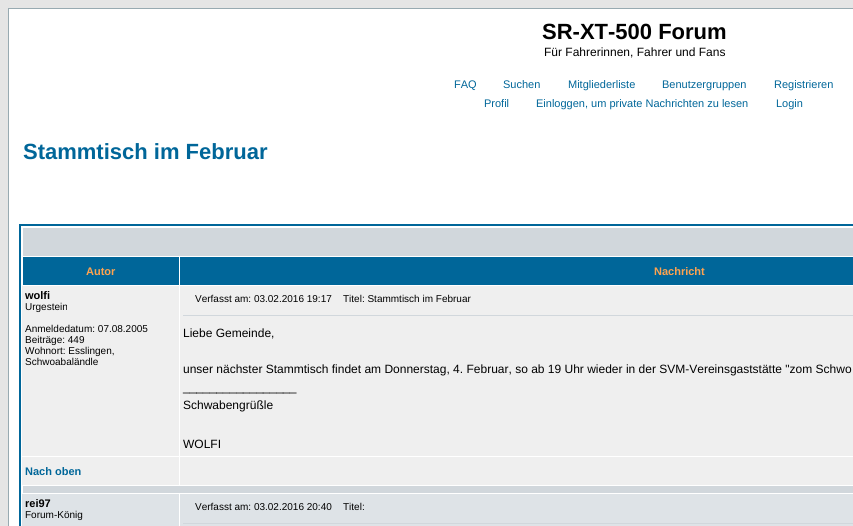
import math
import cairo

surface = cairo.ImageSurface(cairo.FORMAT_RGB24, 853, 526)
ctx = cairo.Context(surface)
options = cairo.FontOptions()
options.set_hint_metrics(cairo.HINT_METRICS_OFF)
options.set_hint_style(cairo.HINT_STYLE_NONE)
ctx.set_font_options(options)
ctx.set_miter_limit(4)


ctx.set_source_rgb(0.898, 0.898, 0.898)
ctx.paint()
ctx.set_source_rgb(1, 1, 1)
ctx.rectangle(8.5, 8.5, 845, 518)
ctx.fill_preserve()
ctx.set_source_rgb(0.596, 0.667, 0.694)
ctx.set_line_width(1)
ctx.stroke()
ctx.select_font_face("Liberation Sans", cairo.FONT_SLANT_NORMAL, cairo.FONT_WEIGHT_BOLD)
ctx.set_font_size(22)
ctx.set_source_rgb(0, 0, 0)
ctx.move_to(542, 39)
ctx.show_text("SR-XT-500 Forum")
ctx.select_font_face("Liberation Sans")
ctx.set_font_size(12)
ctx.move_to(544, 56)
ctx.show_text("Für Fahrerinnen, Fahrer und Fans")
ctx.set_font_size(11)
ctx.set_source_rgb(0, 0.4, 0.6)
ctx.move_to(454, 88)
ctx.show_text("FAQ")
ctx.move_to(503, 88)
ctx.show_text("Suchen")
ctx.move_to(568, 88)
ctx.show_text("Mitgliederliste")
ctx.move_to(662, 88)
ctx.show_text("Benutzergruppen")
ctx.move_to(774, 88)
ctx.show_text("Registrieren")
ctx.move_to(484, 107)
ctx.show_text("Profil")
ctx.move_to(536, 107)
ctx.show_text("Einloggen, um private Nachrichten zu lesen")
ctx.move_to(776, 107)
ctx.show_text("Login")
ctx.select_font_face("Liberation Sans", cairo.FONT_SLANT_NORMAL, cairo.FONT_WEIGHT_BOLD)
ctx.set_font_size(22)
ctx.move_to(23, 159)
ctx.show_text("Stammtisch im Februar")
ctx.rectangle(20, 225, 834, 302)
ctx.set_line_width(2)
ctx.stroke()
ctx.set_source_rgb(0.82, 0.843, 0.863)
ctx.rectangle(23, 228, 830, 28)
ctx.fill()
ctx.set_source_rgb(0, 0.4, 0.6)
ctx.rectangle(23, 257, 156, 28)
ctx.fill()
ctx.set_font_size(11)
ctx.set_source_rgb(1, 0.639, 0.31)
ctx.move_to(86, 275)
ctx.show_text("Autor")
ctx.set_source_rgb(0, 0.4, 0.6)
ctx.rectangle(180, 257, 673, 28)
ctx.fill()
ctx.set_source_rgb(1, 0.639, 0.31)
ctx.move_to(654, 275)
ctx.show_text("Nachricht")
ctx.set_source_rgb(0.937, 0.937, 0.937)
ctx.rectangle(22, 286, 157, 170)
ctx.fill()
ctx.set_source_rgb(0, 0, 0)
ctx.move_to(25, 299)
ctx.show_text("wolfi")
ctx.select_font_face("Liberation Sans")
ctx.set_font_size(10)
ctx.move_to(25, 310)
ctx.show_text("Urgestein")
ctx.move_to(25, 332)
ctx.show_text("Anmeldedatum: 07.08.2005")
ctx.move_to(25, 343)
ctx.show_text("Beiträge: 449")
ctx.move_to(25, 354)
ctx.show_text("Wohnort: Esslingen,")
ctx.move_to(25, 365)
ctx.show_text("Schwoabaländle")
ctx.set_source_rgb(0.937, 0.937, 0.937)
ctx.rectangle(180, 286, 673, 170)
ctx.fill()
ctx.set_source_rgb(0, 0, 0)
ctx.move_to(195, 302)
ctx.show_text("Verfasst am: 03.02.2016 19:17")
ctx.move_to(343, 302)
ctx.show_text("Titel: Stammtisch im Februar")
ctx.set_source_rgb(0.82, 0.843, 0.863)
ctx.rectangle(183, 315, 670, 1)
ctx.fill()
ctx.set_font_size(12)
ctx.set_source_rgb(0, 0, 0)
ctx.move_to(183, 337)
ctx.show_text("Liebe Gemeinde,")
ctx.move_to(183, 373)
ctx.show_text("unser nächster Stammtisch findet am Donnerstag, 4. Februar, so ab 19 Uhr wieder in der SVM-Vereinsgaststätte \"zom Schwo")
ctx.move_to(183, 391)
ctx.show_text("_________________")
ctx.move_to(183, 409)
ctx.show_text("Schwabengrüßle")
ctx.move_to(183, 448)
ctx.show_text("WOLFI")
ctx.set_source_rgb(0.937, 0.937, 0.937)
ctx.rectangle(22, 457, 157, 28)
ctx.fill()
ctx.select_font_face("Liberation Sans", cairo.FONT_SLANT_NORMAL, cairo.FONT_WEIGHT_BOLD)
ctx.set_font_size(11)
ctx.set_source_rgb(0, 0.4, 0.6)
ctx.move_to(25, 475)
ctx.show_text("Nach oben")
ctx.set_source_rgb(0.937, 0.937, 0.937)
ctx.rectangle(180, 457, 673, 28)
ctx.fill()
ctx.set_source_rgb(0.82, 0.843, 0.863)
ctx.rectangle(23, 486, 830, 7)
ctx.fill()
ctx.set_source_rgb(0.871, 0.89, 0.906)
ctx.rectangle(22, 494, 157, 32)
ctx.fill()
ctx.set_source_rgb(0, 0, 0)
ctx.move_to(25, 507)
ctx.show_text("rei97")
ctx.select_font_face("Liberation Sans")
ctx.set_font_size(10)
ctx.move_to(25, 518)
ctx.show_text("Forum-König")
ctx.set_source_rgb(0.871, 0.89, 0.906)
ctx.rectangle(180, 494, 673, 32)
ctx.fill()
ctx.set_source_rgb(0, 0, 0)
ctx.move_to(195, 510)
ctx.show_text("Verfasst am: 03.02.2016 20:40")
ctx.move_to(343, 510)
ctx.show_text("Titel:")
ctx.set_source_rgb(0.82, 0.843, 0.863)
ctx.rectangle(183, 523, 670, 1)
ctx.fill()
surface.write_to_png("page.png")
